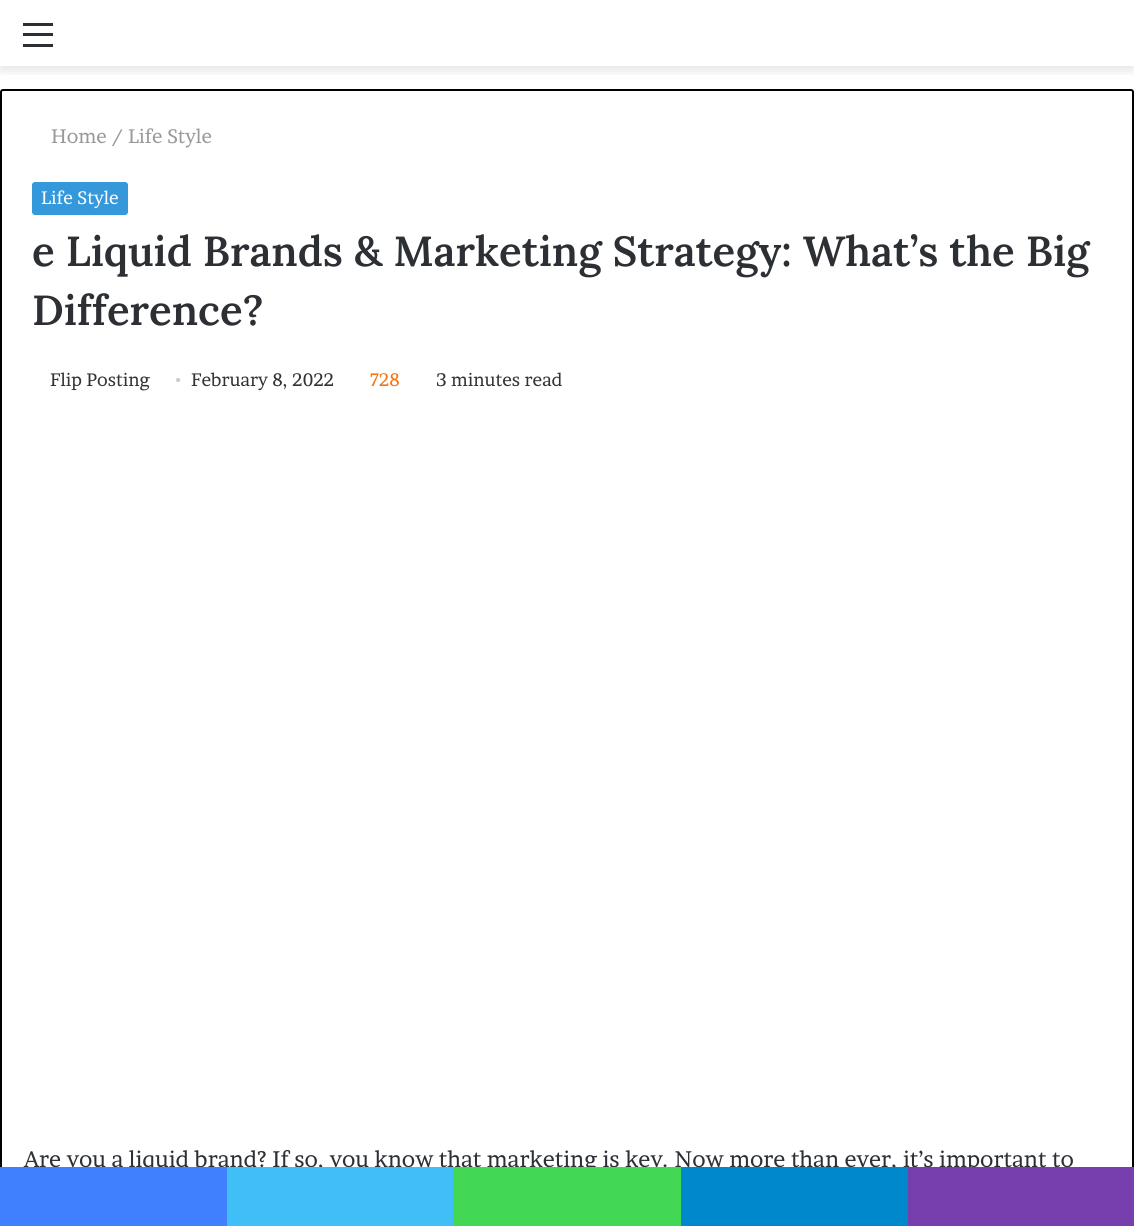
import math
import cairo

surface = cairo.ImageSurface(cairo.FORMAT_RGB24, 1134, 1226)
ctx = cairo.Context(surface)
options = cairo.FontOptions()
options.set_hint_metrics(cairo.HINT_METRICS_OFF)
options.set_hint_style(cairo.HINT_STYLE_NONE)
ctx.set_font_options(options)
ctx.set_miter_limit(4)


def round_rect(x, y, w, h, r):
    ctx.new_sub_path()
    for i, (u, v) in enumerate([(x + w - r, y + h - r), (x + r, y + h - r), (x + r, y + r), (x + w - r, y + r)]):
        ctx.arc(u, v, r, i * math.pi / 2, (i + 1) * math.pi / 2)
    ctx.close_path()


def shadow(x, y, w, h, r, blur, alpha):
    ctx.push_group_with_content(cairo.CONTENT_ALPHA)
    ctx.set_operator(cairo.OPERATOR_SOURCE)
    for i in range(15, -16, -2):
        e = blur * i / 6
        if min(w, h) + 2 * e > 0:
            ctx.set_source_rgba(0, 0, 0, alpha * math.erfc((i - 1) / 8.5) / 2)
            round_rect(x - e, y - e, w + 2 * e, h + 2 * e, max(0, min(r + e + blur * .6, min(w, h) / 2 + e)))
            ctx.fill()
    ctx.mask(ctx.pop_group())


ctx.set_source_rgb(1, 1, 1)
ctx.paint()
ctx.save()
ctx.rectangle(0, 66, 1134, 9)
ctx.clip()
ctx.set_source_rgb(0, 0, 0)
shadow(0, 5, 1134, 66, 0, 5, 0.1)
ctx.restore()
ctx.set_source_rgb(0.173, 0.184, 0.204)
ctx.rectangle(23, 33, 30, 3)
ctx.fill()
ctx.rectangle(23, 23, 30, 3)
ctx.fill()
ctx.rectangle(23, 44, 30, 3)
ctx.fill()
round_rect(1, 90, 1132, 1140, 2)
ctx.set_source_rgb(0, 0, 0)
ctx.stroke()
ctx.select_font_face("Brawler")
ctx.set_font_size(19.5)
ctx.set_source_rgb(0.6, 0.6, 0.6)
ctx.move_to(51, 143)
ctx.show_text("Home / Life Style")
ctx.set_source_rgb(0.204, 0.596, 0.859)
round_rect(32, 182, 96, 33, 3)
ctx.fill()
ctx.set_font_size(18)
ctx.set_source_rgb(1, 1, 1)
ctx.move_to(41, 204)
ctx.show_text("Life Style")
ctx.select_font_face("Lora SemiBold")
ctx.set_font_size(42)
ctx.set_source_rgb(0.173, 0.184, 0.204)
ctx.move_to(32, 266)
ctx.show_text("e Liquid Brands & Marketing Strategy: What’s the Big")
ctx.move_to(32, 325)
ctx.show_text("Difference?")
ctx.select_font_face("Brawler")
ctx.set_font_size(18)
ctx.set_source_rgb(0.2, 0.2, 0.2)
ctx.move_to(50, 386)
ctx.show_text("Flip Posting")
ctx.select_font_face("Liberation Serif")
ctx.set_source_rgb(0.8, 0.8, 0.8)
ctx.move_to(175, 386)
ctx.show_text("•")
ctx.select_font_face("Brawler")
ctx.set_source_rgb(0.2, 0.2, 0.2)
ctx.move_to(191, 386)
ctx.show_text("February 8, 2022")
ctx.set_source_rgb(0.957, 0.459, 0.071)
ctx.move_to(370, 386)
ctx.show_text("728")
ctx.set_source_rgb(0.2, 0.2, 0.2)
ctx.move_to(436, 386)
ctx.show_text("3 minutes read")
ctx.set_font_size(22.5)
ctx.set_source_rgb(0.173, 0.184, 0.204)
ctx.move_to(24, 1167)
ctx.show_text("Are you a liquid brand? If so, you know that marketing is key. Now more than ever, it’s important to")
ctx.set_source_rgb(0.251, 0.502, 1)
ctx.rectangle(0, 1167, 227, 59)
ctx.fill()
ctx.set_source_rgb(0.251, 0.749, 0.961)
ctx.rectangle(227, 1167, 226, 59)
ctx.fill()
ctx.set_source_rgb(0.263, 0.847, 0.329)
ctx.rectangle(453, 1167, 228, 59)
ctx.fill()
ctx.set_source_rgb(0, 0.533, 0.8)
ctx.rectangle(681, 1167, 227, 59)
ctx.fill()
ctx.set_source_rgb(0.467, 0.243, 0.678)
ctx.rectangle(908, 1167, 226, 59)
ctx.fill()
surface.write_to_png("page.png")
